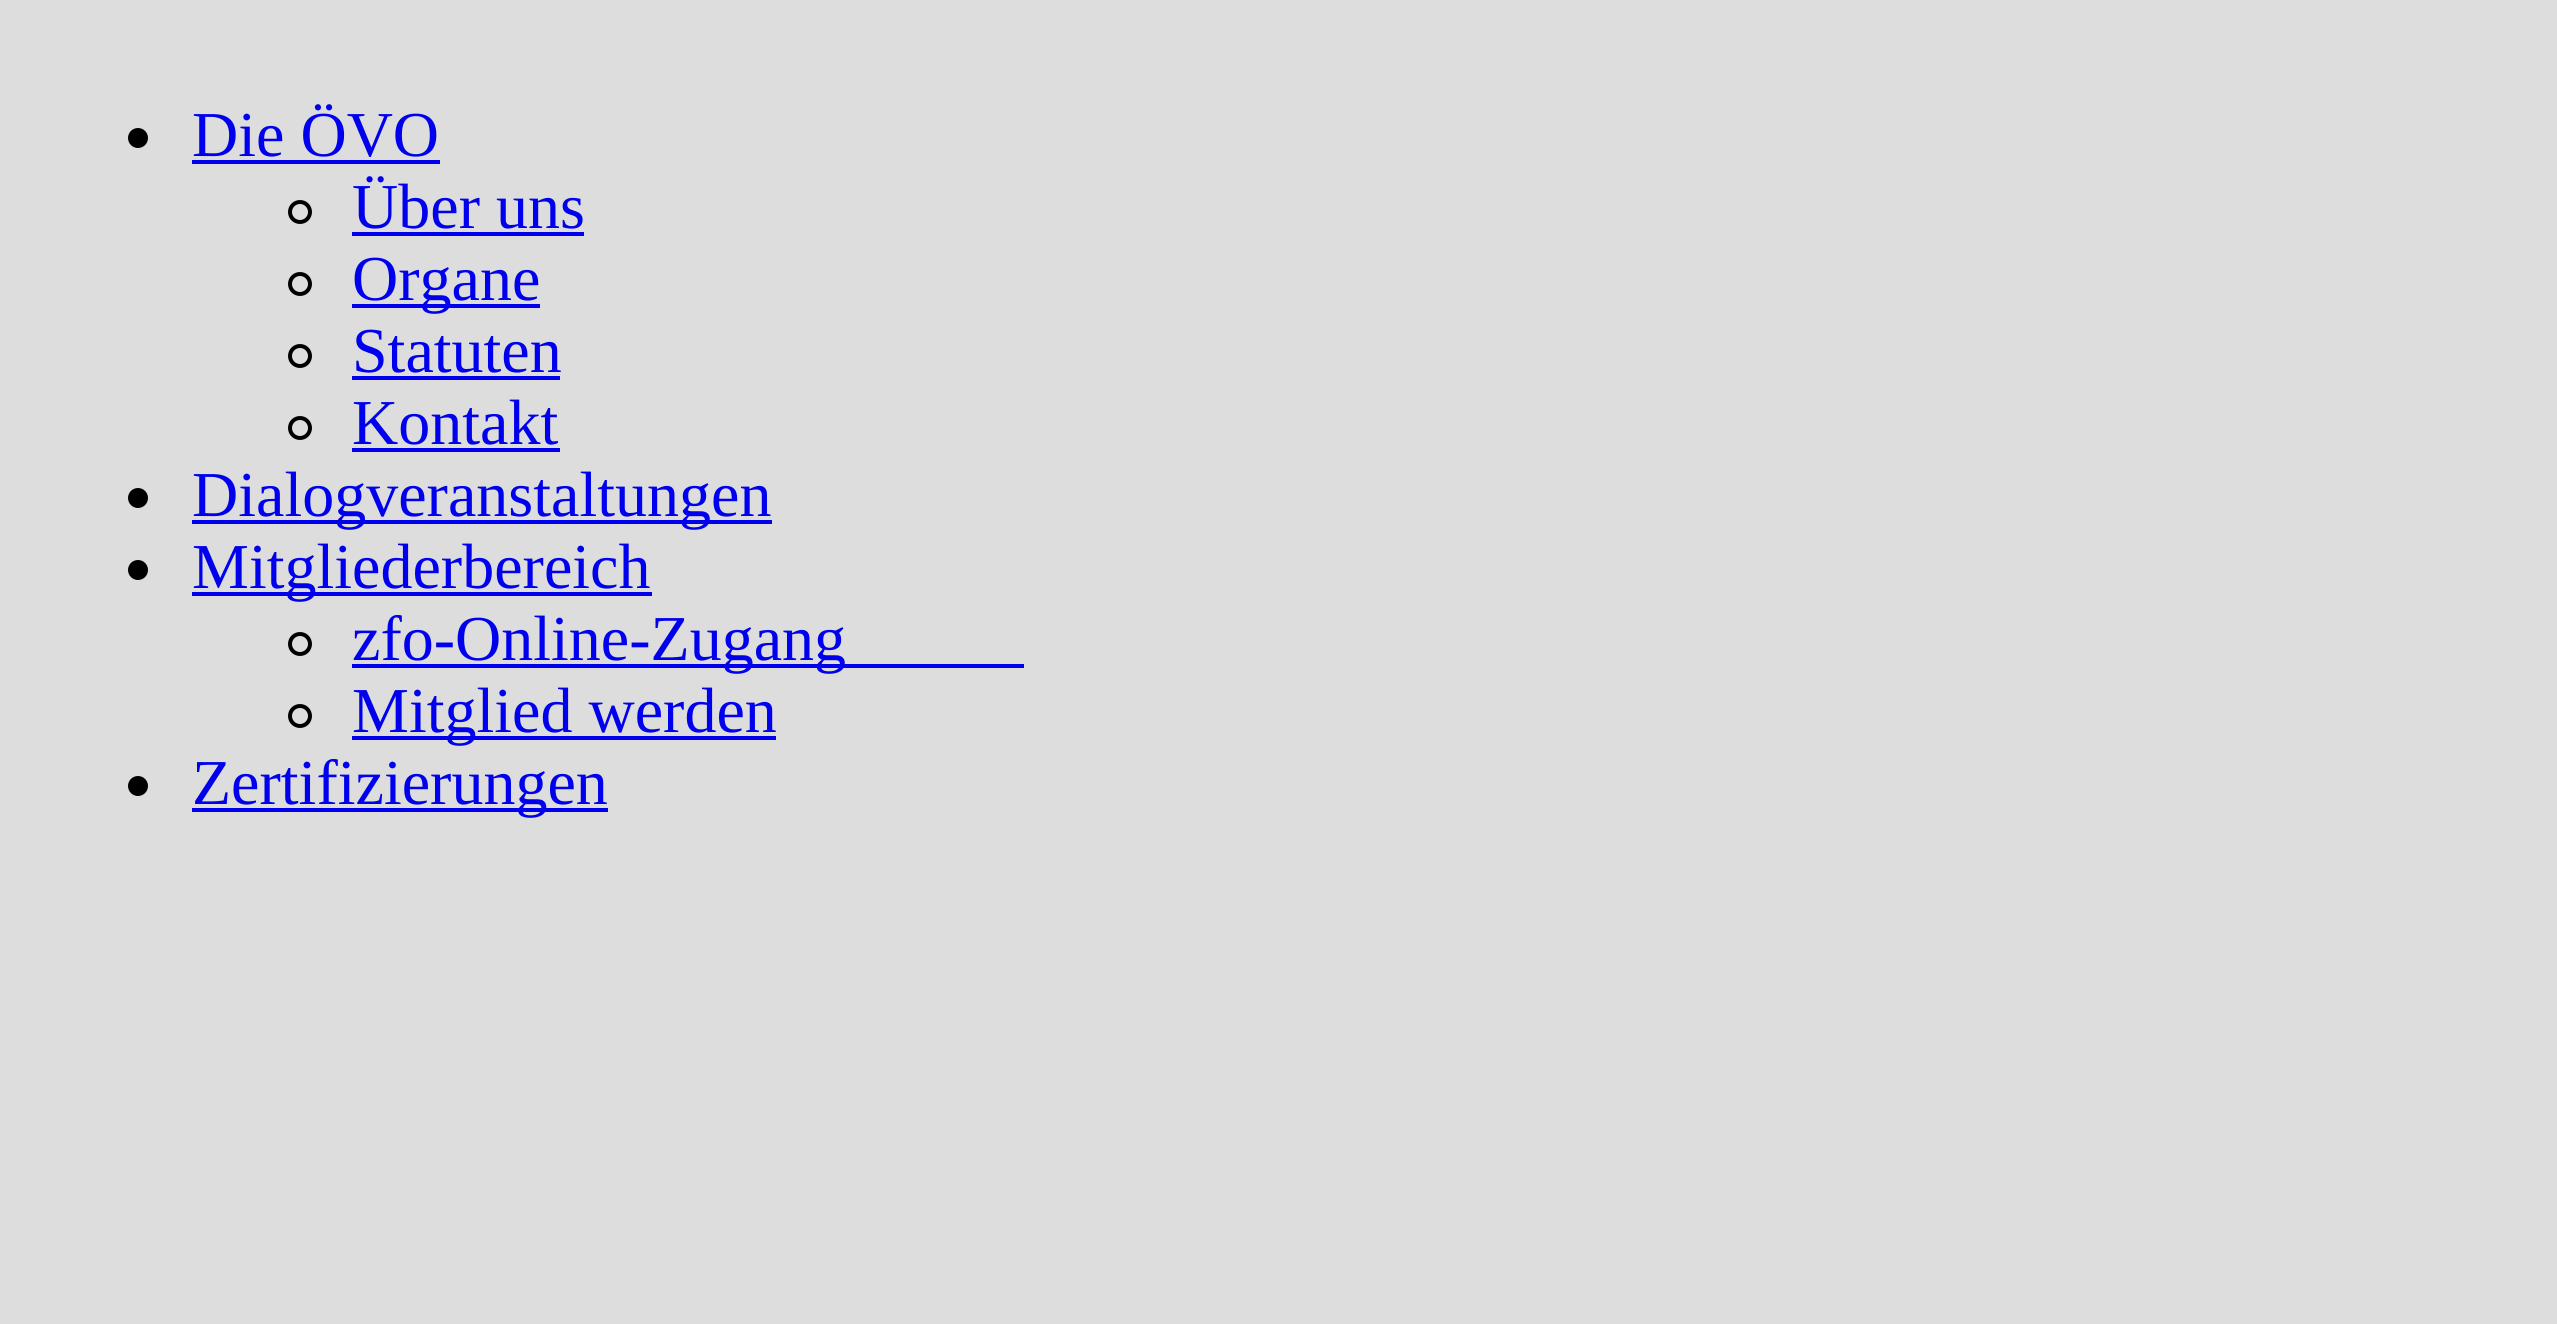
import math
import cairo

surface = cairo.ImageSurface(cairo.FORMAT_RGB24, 2557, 1324)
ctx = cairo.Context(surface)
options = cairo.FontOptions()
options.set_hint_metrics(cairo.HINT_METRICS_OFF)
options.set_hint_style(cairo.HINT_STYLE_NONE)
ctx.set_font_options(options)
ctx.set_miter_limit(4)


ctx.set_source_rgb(0.867, 0.867, 0.867)
ctx.paint()
ctx.set_source_rgb(0, 0, 0)
ctx.arc(138, 138, 10, 0, 2 * math.pi)
ctx.fill()
ctx.select_font_face("Liberation Serif")
ctx.set_font_size(64)
ctx.set_source_rgb(0, 0, 0.933)
ctx.move_to(192, 156)
ctx.show_text("Die ÖVO")
ctx.rectangle(192, 160, 248, 4)
ctx.fill()
ctx.arc(300, 212, 10, 0, 2 * math.pi)
ctx.set_source_rgb(0, 0, 0)
ctx.set_line_width(4)
ctx.stroke()
ctx.set_source_rgb(0, 0, 0.933)
ctx.move_to(352, 228)
ctx.show_text("Über uns")
ctx.rectangle(352, 232, 232, 4)
ctx.fill()
ctx.arc(300, 284, 10, 0, 2 * math.pi)
ctx.set_source_rgb(0, 0, 0)
ctx.stroke()
ctx.set_source_rgb(0, 0, 0.933)
ctx.rectangle(352, 304, 188, 4)
ctx.fill()
ctx.move_to(352, 300)
ctx.show_text("Organe")
ctx.new_path()
ctx.arc(300, 356, 10, 0, 2 * math.pi)
ctx.set_source_rgb(0, 0, 0)
ctx.stroke()
ctx.set_source_rgb(0, 0, 0.933)
ctx.move_to(352, 372)
ctx.show_text("Statuten")
ctx.rectangle(352, 376, 208, 4)
ctx.fill()
ctx.arc(300, 428, 10, 0, 2 * math.pi)
ctx.set_source_rgb(0, 0, 0)
ctx.stroke()
ctx.set_source_rgb(0, 0, 0.933)
ctx.move_to(352, 444)
ctx.show_text("Kontakt")
ctx.rectangle(352, 448, 208, 4)
ctx.fill()
ctx.set_source_rgb(0, 0, 0)
ctx.arc(138, 498, 10, 0, 2 * math.pi)
ctx.fill()
ctx.set_source_rgb(0, 0, 0.933)
ctx.rectangle(192, 520, 580, 4)
ctx.fill()
ctx.move_to(192, 516)
ctx.show_text("Dialogveranstaltungen")
ctx.set_source_rgb(0, 0, 0)
ctx.new_path()
ctx.arc(138, 570, 10, 0, 2 * math.pi)
ctx.fill()
ctx.set_source_rgb(0, 0, 0.933)
ctx.rectangle(192, 592, 460, 4)
ctx.fill()
ctx.move_to(192, 588)
ctx.show_text("Mitgliederbereich")
ctx.new_path()
ctx.arc(300, 644, 10, 0, 2 * math.pi)
ctx.set_source_rgb(0, 0, 0)
ctx.stroke()
ctx.set_source_rgb(0, 0, 0.933)
ctx.rectangle(352, 664, 672, 4)
ctx.fill()
ctx.move_to(352, 660)
ctx.show_text("zfo-Online-Zugang")
ctx.new_path()
ctx.arc(300, 716, 10, 0, 2 * math.pi)
ctx.set_source_rgb(0, 0, 0)
ctx.stroke()
ctx.set_source_rgb(0, 0, 0.933)
ctx.rectangle(352, 736, 424, 4)
ctx.fill()
ctx.move_to(352, 732)
ctx.show_text("Mitglied werden")
ctx.set_source_rgb(0, 0, 0)
ctx.new_path()
ctx.arc(138, 786, 10, 0, 2 * math.pi)
ctx.fill()
ctx.set_source_rgb(0, 0, 0.933)
ctx.rectangle(192, 808, 416, 4)
ctx.fill()
ctx.move_to(192, 804)
ctx.show_text("Zertifizierungen")
surface.write_to_png("page.png")
